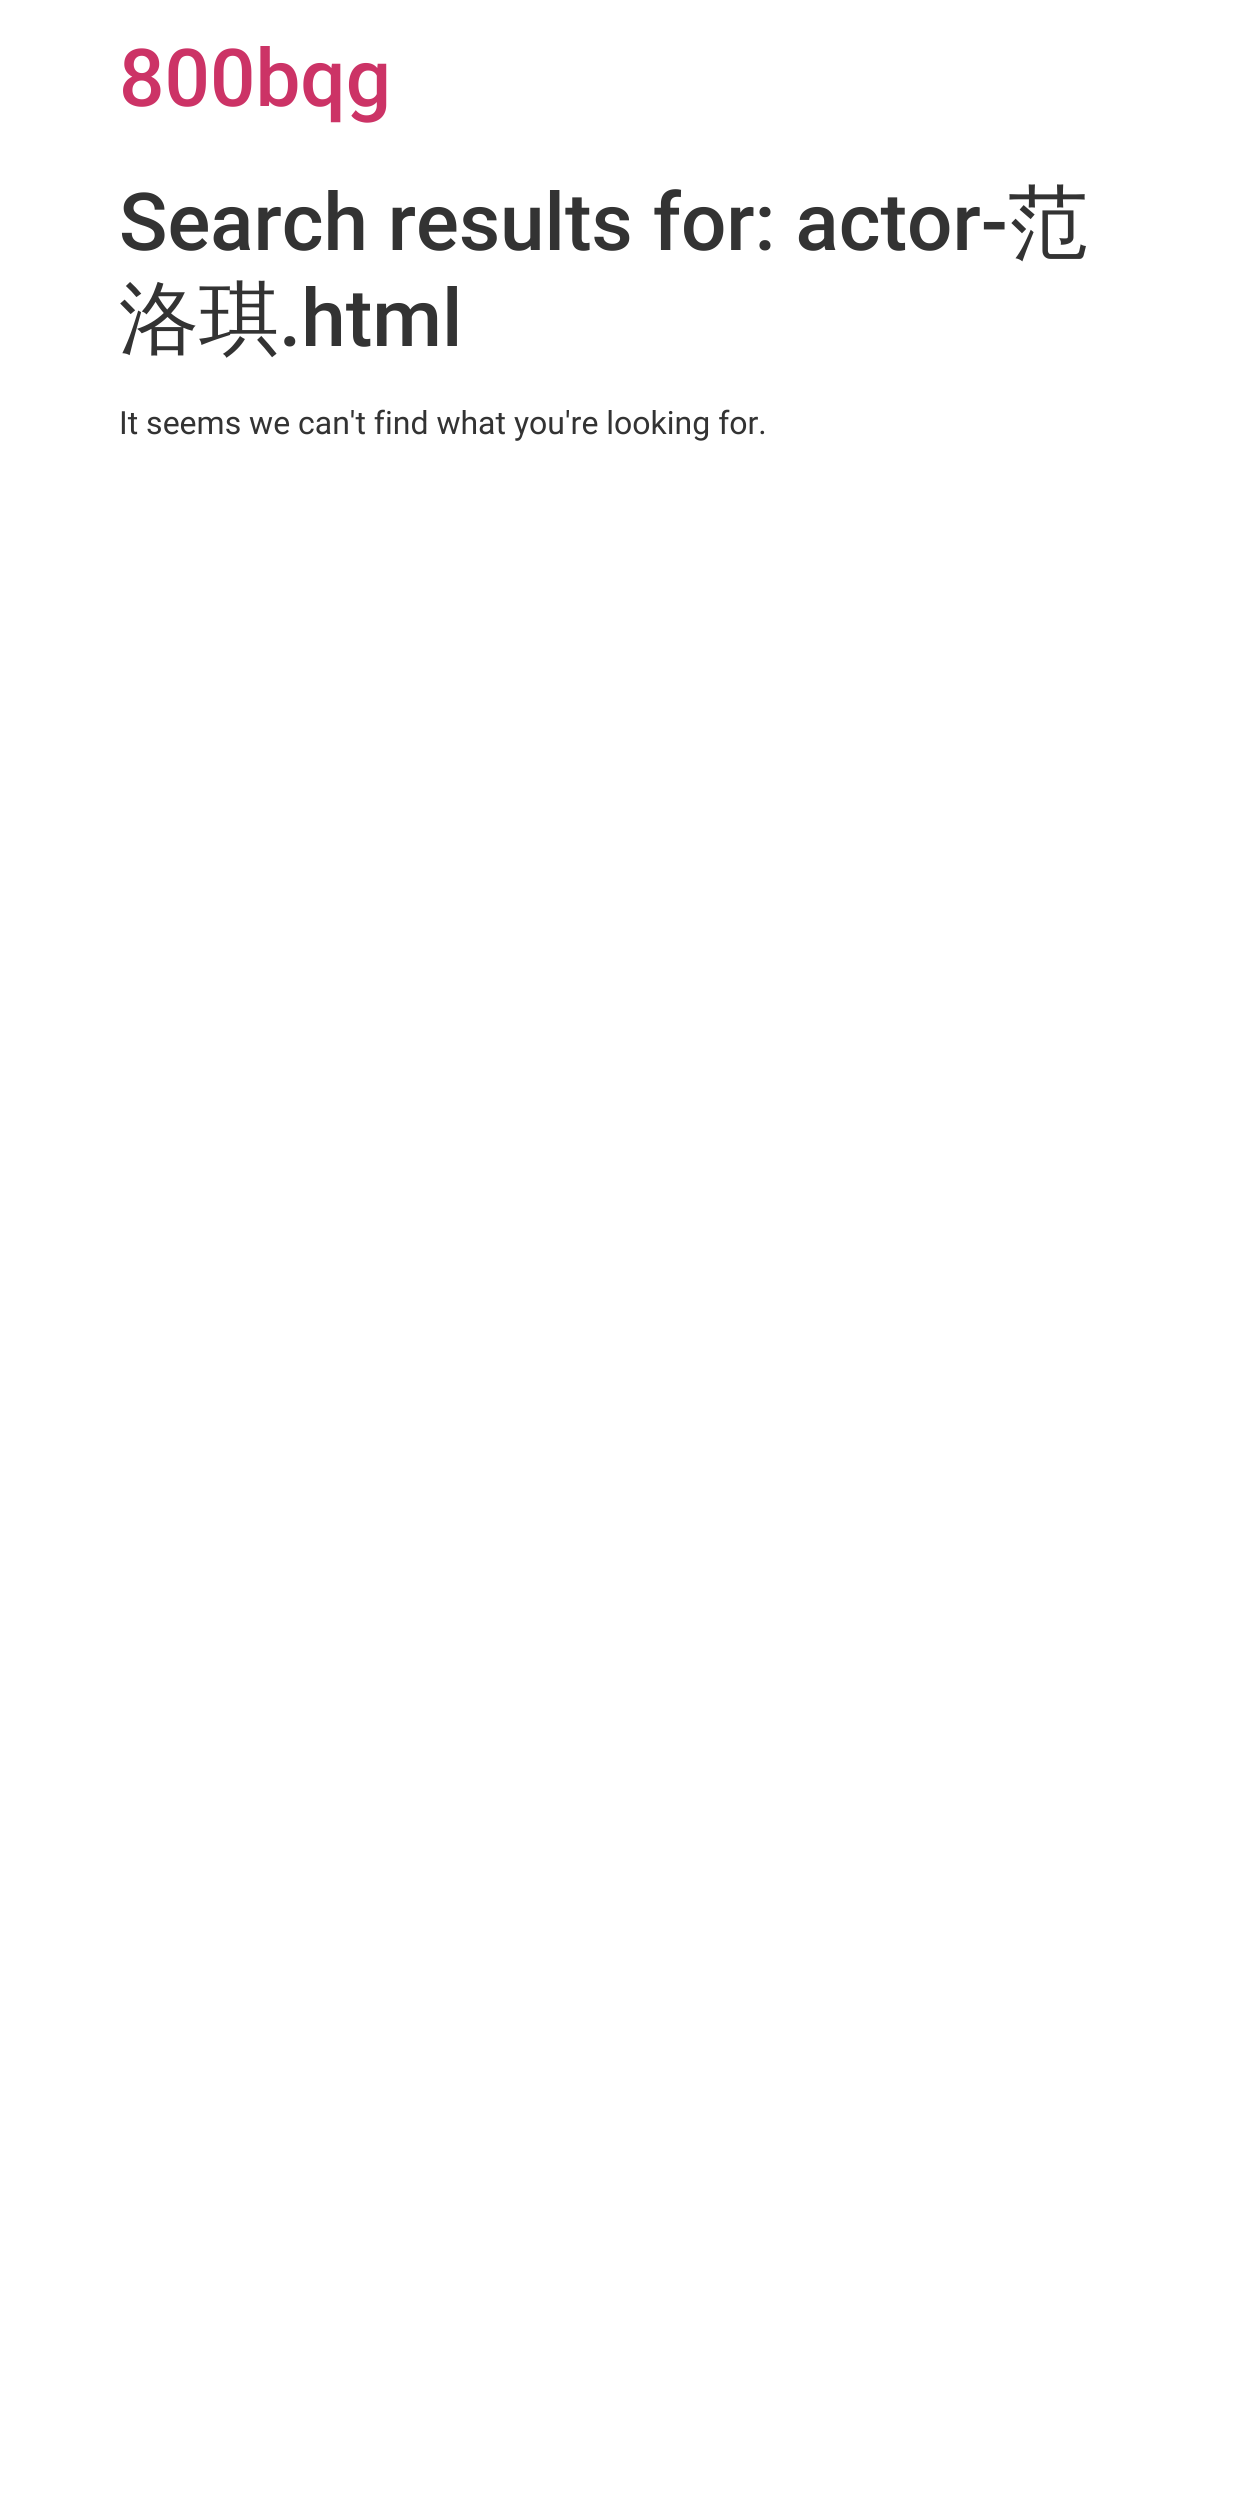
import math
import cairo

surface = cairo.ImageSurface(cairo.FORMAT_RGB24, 1237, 2515)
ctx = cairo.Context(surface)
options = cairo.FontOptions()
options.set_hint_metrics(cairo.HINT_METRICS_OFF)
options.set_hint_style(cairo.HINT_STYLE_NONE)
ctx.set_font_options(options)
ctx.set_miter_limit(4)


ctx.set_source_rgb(1, 1, 1)
ctx.paint()
ctx.select_font_face("Roboto Medium")
ctx.set_font_size(80)
ctx.set_source_rgb(0.8, 0.2, 0.4)
ctx.move_to(119, 106)
ctx.show_text("800bqg")
ctx.set_source_rgb(0.2, 0.2, 0.2)
ctx.move_to(119, 250)
ctx.show_text("Search results for: actor-")
ctx.select_font_face("WenQuanYi Zen Hei Medium")
ctx.move_to(1008, 250)
ctx.show_text("范")
ctx.move_to(119, 346)
ctx.show_text("洛琪")
ctx.select_font_face("Roboto Medium")
ctx.move_to(279, 346)
ctx.show_text(".html")
ctx.select_font_face("Roboto")
ctx.set_font_size(32)
ctx.move_to(119, 434)
ctx.show_text("It seems we can't find what you're looking for.")
surface.write_to_png("page.png")
